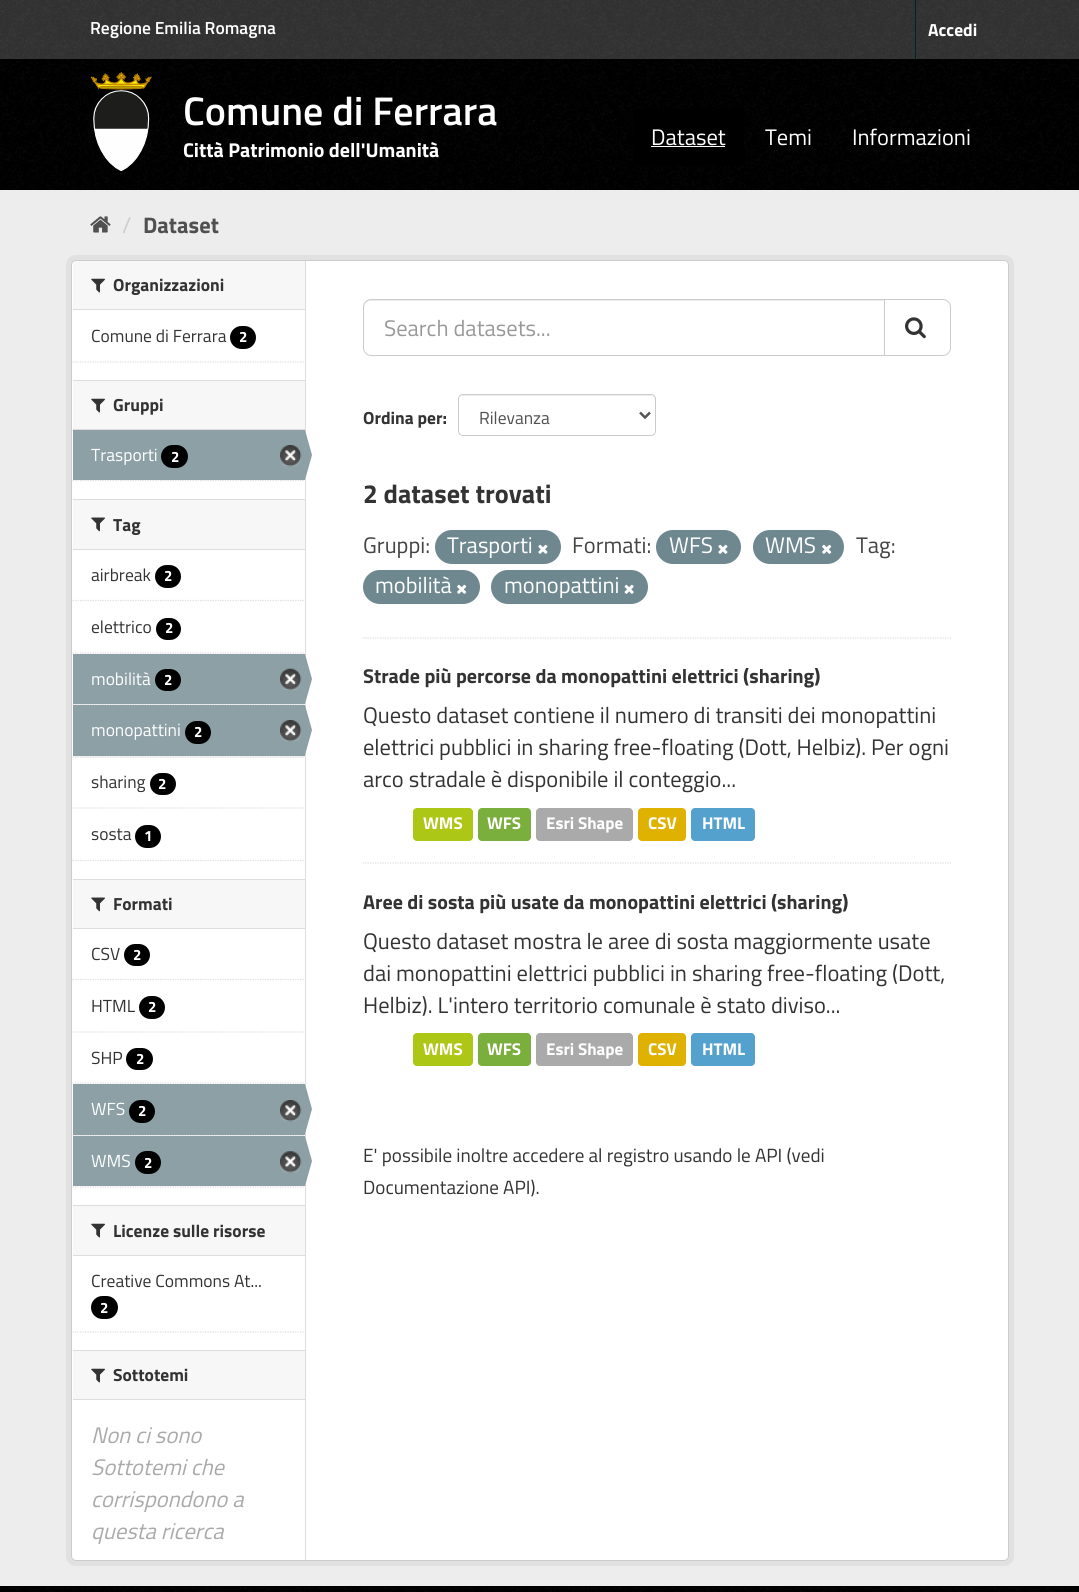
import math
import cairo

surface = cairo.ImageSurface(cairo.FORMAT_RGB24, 1079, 1592)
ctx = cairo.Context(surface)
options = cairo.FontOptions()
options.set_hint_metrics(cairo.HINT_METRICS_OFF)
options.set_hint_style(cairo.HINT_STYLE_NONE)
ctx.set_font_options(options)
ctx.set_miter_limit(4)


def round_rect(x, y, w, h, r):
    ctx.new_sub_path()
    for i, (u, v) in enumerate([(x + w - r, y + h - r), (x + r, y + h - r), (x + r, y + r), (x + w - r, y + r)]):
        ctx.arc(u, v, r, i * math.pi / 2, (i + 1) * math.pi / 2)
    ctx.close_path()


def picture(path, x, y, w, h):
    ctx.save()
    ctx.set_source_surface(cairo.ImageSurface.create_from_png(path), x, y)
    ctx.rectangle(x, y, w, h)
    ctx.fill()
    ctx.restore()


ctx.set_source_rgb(0.2, 0.2, 0.2)
ctx.paint()
picture("img1.png", 0, 0, 1079, 58)
ctx.select_font_face("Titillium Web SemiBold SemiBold")
ctx.set_font_size(17.5)
ctx.set_source_rgb(1, 1, 1)
ctx.move_to(90, 34)
ctx.show_text("Regione Emilia Romagna")
ctx.set_source_rgb(0, 0.137, 0.18)
ctx.rectangle(915, 0, 1, 59)
ctx.fill()
ctx.select_font_face("Titillium Web", cairo.FONT_SLANT_NORMAL, cairo.FONT_WEIGHT_BOLD)
ctx.set_source_rgb(1, 1, 1)
ctx.move_to(928, 36)
ctx.show_text("Accedi")
ctx.set_source_rgb(0, 0, 0)
ctx.rectangle(0, 59, 1079, 131)
ctx.fill()
picture("img2.png", 0, 59, 1079, 131)
picture("img3.png", 90, 72, 62, 99)
ctx.select_font_face("Titillium Web SemiBold SemiBold")
ctx.set_font_size(40)
ctx.set_source_rgb(1, 1, 1)
ctx.move_to(183, 125)
ctx.show_text("Comune di Ferrara")
ctx.select_font_face("Titillium Web", cairo.FONT_SLANT_NORMAL, cairo.FONT_WEIGHT_BOLD)
ctx.set_font_size(20)
ctx.move_to(183, 157)
ctx.show_text("Città Patrimonio dell'Umanità")
ctx.set_source_rgb(0, 0, 0)
round_rect(633, 109, 111, 57, 5)
ctx.fill()
ctx.select_font_face("Titillium Web")
ctx.set_font_size(22.5)
ctx.set_source_rgb(1, 1, 1)
ctx.move_to(651, 145)
ctx.show_text("Dataset")
ctx.rectangle(651, 146, 74, 1)
ctx.fill()
ctx.move_to(765, 145)
ctx.show_text("Temi")
ctx.move_to(852, 145)
ctx.show_text("Informazioni")
ctx.set_source_rgb(0.929, 0.929, 0.929)
ctx.rectangle(0, 190, 1079, 1396)
ctx.fill()
picture("img4.png", 90, 216, 21, 17)
ctx.set_source_rgb(0.8, 0.8, 0.8)
ctx.move_to(122, 233)
ctx.show_text("/")
ctx.select_font_face("Titillium Web", cairo.FONT_SLANT_NORMAL, cairo.FONT_WEIGHT_BOLD)
ctx.set_source_rgb(0.314, 0.314, 0.314)
ctx.move_to(143, 233)
ctx.show_text("Dataset")
round_rect(68.5, 257.5, 943, 1306, 7.5)
ctx.set_source_rgb(0.882, 0.882, 0.882)
ctx.set_line_width(5)
ctx.stroke()
ctx.set_source_rgb(1, 1, 1)
round_rect(71.5, 260.5, 937, 1300, 4.5)
ctx.fill_preserve()
ctx.set_source_rgb(0.8, 0.8, 0.8)
ctx.set_line_width(1)
ctx.stroke()
ctx.set_source_rgb(0.965, 0.965, 0.965)
ctx.new_path()
ctx.move_to(77, 261)
ctx.line_to(305, 261)
ctx.line_to(305, 310)
ctx.line_to(73, 310)
ctx.line_to(73, 265)
ctx.curve_to(73, 263, 75, 261, 77, 261)
ctx.close_path()
ctx.fill()
ctx.set_source_rgb(0.867, 0.867, 0.867)
ctx.rectangle(73, 309, 232, 1)
ctx.fill()
picture("img5.png", 91, 278, 14, 15)
ctx.set_font_size(17.5)
ctx.set_source_rgb(0.2, 0.2, 0.2)
ctx.move_to(113, 291)
ctx.show_text("Organizzazioni")
ctx.select_font_face("Titillium Web")
ctx.move_to(91, 342)
ctx.show_text("Comune di Ferrara")
ctx.set_source_rgb(0, 0, 0)
round_rect(230, 326, 26, 23, 11.5)
ctx.fill()
ctx.select_font_face("Titillium Web", cairo.FONT_SLANT_NORMAL, cairo.FONT_WEIGHT_BOLD)
ctx.set_font_size(15)
ctx.set_source_rgb(1, 1, 1)
ctx.move_to(239, 342)
ctx.show_text("2")
ctx.new_path()
ctx.move_to(72.5, 362)
ctx.line_to(305, 362)
ctx.set_source_rgb(0.867, 0.867, 0.867)
ctx.set_line_width(1.2)
ctx.set_dash([1.25, 1.25])
ctx.stroke()
ctx.set_source_rgb(0.965, 0.965, 0.965)
ctx.rectangle(73, 381, 232, 48)
ctx.fill()
ctx.set_source_rgb(0.867, 0.867, 0.867)
ctx.rectangle(73, 380, 232, 1)
ctx.fill()
ctx.rectangle(73, 429, 232, 1)
ctx.fill()
picture("img5.png", 91, 398, 14, 15)
ctx.set_font_size(17.5)
ctx.set_source_rgb(0.2, 0.2, 0.2)
ctx.move_to(113, 411)
ctx.show_text("Gruppi")
ctx.new_path()
ctx.move_to(72.5, 480.5)
ctx.line_to(305, 480.5)
ctx.set_source_rgb(0.867, 0.867, 0.867)
ctx.stroke()
ctx.set_source_rgb(0.549, 0.627, 0.651)
ctx.rectangle(73, 430, 232, 50)
ctx.fill()
ctx.select_font_face("Titillium Web")
ctx.set_source_rgb(1, 1, 1)
ctx.move_to(91, 461)
ctx.show_text("Trasporti")
ctx.set_source_rgb(0, 0, 0)
round_rect(161, 445, 27, 23, 11.5)
ctx.fill()
ctx.select_font_face("Titillium Web", cairo.FONT_SLANT_NORMAL, cairo.FONT_WEIGHT_BOLD)
ctx.set_font_size(15)
ctx.set_source_rgb(1, 1, 1)
ctx.move_to(171, 462)
ctx.show_text("2")
picture("img6.png", 280, 445, 22, 22)
ctx.set_source_rgb(0.867, 0.867, 0.867)
ctx.rectangle(305, 261, 1, 1299)
ctx.fill()
ctx.set_source_rgb(0.549, 0.627, 0.651)
ctx.new_path()
ctx.move_to(305, 480)
ctx.line_to(305, 430)
ctx.line_to(312, 455)
ctx.close_path()
ctx.fill()
ctx.set_source_rgb(0.965, 0.965, 0.965)
ctx.rectangle(73, 500, 232, 49)
ctx.fill()
ctx.set_source_rgb(0.867, 0.867, 0.867)
ctx.rectangle(73, 499, 232, 1)
ctx.fill()
ctx.rectangle(73, 549, 232, 1)
ctx.fill()
picture("img7.png", 91, 517, 14, 15)
ctx.set_font_size(17.5)
ctx.set_source_rgb(0.2, 0.2, 0.2)
ctx.move_to(113, 531)
ctx.show_text("Tag")
ctx.new_path()
ctx.move_to(72.5, 600.5)
ctx.line_to(305, 600.5)
ctx.set_source_rgb(0.867, 0.867, 0.867)
ctx.stroke()
ctx.select_font_face("Titillium Web")
ctx.set_source_rgb(0.2, 0.2, 0.2)
ctx.move_to(91, 581)
ctx.show_text("airbreak")
ctx.set_source_rgb(0, 0, 0)
round_rect(155, 565, 26, 23, 11.5)
ctx.fill()
ctx.select_font_face("Titillium Web", cairo.FONT_SLANT_NORMAL, cairo.FONT_WEIGHT_BOLD)
ctx.set_font_size(15)
ctx.set_source_rgb(1, 1, 1)
ctx.move_to(164, 581)
ctx.show_text("2")
ctx.new_path()
ctx.move_to(72.5, 653)
ctx.line_to(305, 653)
ctx.set_source_rgb(0.867, 0.867, 0.867)
ctx.stroke()
ctx.select_font_face("Titillium Web")
ctx.set_font_size(17.5)
ctx.set_source_rgb(0.2, 0.2, 0.2)
ctx.move_to(91, 633)
ctx.show_text("elettrico")
ctx.set_source_rgb(0, 0, 0)
round_rect(156, 618, 25, 22, 11)
ctx.fill()
ctx.select_font_face("Titillium Web", cairo.FONT_SLANT_NORMAL, cairo.FONT_WEIGHT_BOLD)
ctx.set_font_size(15)
ctx.set_source_rgb(1, 1, 1)
ctx.move_to(165, 633)
ctx.show_text("2")
ctx.set_source_rgb(0.965, 0.965, 0.965)
ctx.rectangle(73, 704, 232, 1)
ctx.fill()
ctx.new_path()
ctx.move_to(72.5, 704.5)
ctx.line_to(305, 704.5)
ctx.set_source_rgb(0.867, 0.867, 0.867)
ctx.stroke()
ctx.set_source_rgb(0.549, 0.627, 0.651)
ctx.rectangle(73, 654, 232, 50)
ctx.fill()
ctx.select_font_face("Titillium Web")
ctx.set_font_size(17.5)
ctx.set_source_rgb(1, 1, 1)
ctx.move_to(91, 685)
ctx.show_text("mobilità")
ctx.set_source_rgb(0, 0, 0)
round_rect(155, 669, 26, 22, 11)
ctx.fill()
ctx.select_font_face("Titillium Web", cairo.FONT_SLANT_NORMAL, cairo.FONT_WEIGHT_BOLD)
ctx.set_font_size(15)
ctx.set_source_rgb(1, 1, 1)
ctx.move_to(164, 685)
ctx.show_text("2")
picture("img8.png", 280, 668, 22, 22)
ctx.set_source_rgb(0.549, 0.627, 0.651)
ctx.new_path()
ctx.move_to(305, 704)
ctx.line_to(305, 654)
ctx.line_to(312, 679)
ctx.close_path()
ctx.fill()
ctx.set_source_rgb(0.965, 0.965, 0.965)
ctx.rectangle(73, 756, 232, 2)
ctx.fill()
ctx.new_path()
ctx.move_to(72.5, 757)
ctx.line_to(305, 757)
ctx.set_source_rgb(0.867, 0.867, 0.867)
ctx.stroke()
ctx.set_source_rgb(0.549, 0.627, 0.651)
ctx.rectangle(73, 705, 232, 51)
ctx.fill()
ctx.select_font_face("Titillium Web")
ctx.set_font_size(17.5)
ctx.set_source_rgb(1, 1, 1)
ctx.move_to(91, 736)
ctx.show_text("monopattini")
ctx.set_source_rgb(0, 0, 0)
round_rect(185, 721, 26, 23, 11.5)
ctx.fill()
ctx.select_font_face("Titillium Web", cairo.FONT_SLANT_NORMAL, cairo.FONT_WEIGHT_BOLD)
ctx.set_font_size(15)
ctx.set_source_rgb(1, 1, 1)
ctx.move_to(194, 737)
ctx.show_text("2")
picture("img6.png", 280, 720, 22, 22)
ctx.set_source_rgb(0.549, 0.627, 0.651)
ctx.new_path()
ctx.move_to(305, 755)
ctx.line_to(305, 705)
ctx.line_to(312, 730)
ctx.close_path()
ctx.fill()
ctx.new_path()
ctx.move_to(72.5, 808)
ctx.line_to(305, 808)
ctx.set_source_rgb(0.867, 0.867, 0.867)
ctx.stroke()
ctx.select_font_face("Titillium Web")
ctx.set_font_size(17.5)
ctx.set_source_rgb(0.2, 0.2, 0.2)
ctx.move_to(91, 788)
ctx.show_text("sharing")
ctx.set_source_rgb(0, 0, 0)
round_rect(150, 773, 26, 22, 11)
ctx.fill()
ctx.select_font_face("Titillium Web", cairo.FONT_SLANT_NORMAL, cairo.FONT_WEIGHT_BOLD)
ctx.set_font_size(15)
ctx.set_source_rgb(1, 1, 1)
ctx.move_to(158, 789)
ctx.show_text("2")
ctx.select_font_face("Titillium Web")
ctx.set_font_size(17.5)
ctx.set_source_rgb(0.2, 0.2, 0.2)
ctx.move_to(91, 840)
ctx.show_text("sosta")
ctx.set_source_rgb(0, 0, 0)
round_rect(135, 825, 26, 23, 11.5)
ctx.fill()
ctx.select_font_face("Titillium Web", cairo.FONT_SLANT_NORMAL, cairo.FONT_WEIGHT_BOLD)
ctx.set_font_size(15)
ctx.set_source_rgb(1, 1, 1)
ctx.move_to(144, 841)
ctx.show_text("1")
ctx.new_path()
ctx.move_to(72.5, 860.5)
ctx.line_to(305, 860.5)
ctx.set_source_rgb(0.867, 0.867, 0.867)
ctx.stroke()
ctx.set_source_rgb(0.965, 0.965, 0.965)
ctx.rectangle(73, 880, 232, 48)
ctx.fill()
ctx.set_source_rgb(0.867, 0.867, 0.867)
ctx.rectangle(73, 879, 232, 1)
ctx.fill()
ctx.rectangle(73, 928, 232, 1)
ctx.fill()
picture("img7.png", 91, 897, 14, 15)
ctx.set_font_size(17.5)
ctx.set_source_rgb(0.2, 0.2, 0.2)
ctx.move_to(113, 910)
ctx.show_text("Formati")
ctx.new_path()
ctx.move_to(72.5, 979.5)
ctx.line_to(305, 979.5)
ctx.set_source_rgb(0.867, 0.867, 0.867)
ctx.stroke()
ctx.select_font_face("Titillium Web")
ctx.set_source_rgb(0.2, 0.2, 0.2)
ctx.move_to(91, 960)
ctx.show_text("CSV")
ctx.set_source_rgb(0, 0, 0)
round_rect(124, 944, 26, 22, 11)
ctx.fill()
ctx.select_font_face("Titillium Web", cairo.FONT_SLANT_NORMAL, cairo.FONT_WEIGHT_BOLD)
ctx.set_font_size(15)
ctx.set_source_rgb(1, 1, 1)
ctx.move_to(133, 960)
ctx.show_text("2")
ctx.new_path()
ctx.move_to(72.5, 1032)
ctx.line_to(305, 1032)
ctx.set_source_rgb(0.867, 0.867, 0.867)
ctx.stroke()
ctx.select_font_face("Titillium Web")
ctx.set_font_size(17.5)
ctx.set_source_rgb(0.2, 0.2, 0.2)
ctx.move_to(91, 1012)
ctx.show_text("HTML")
ctx.set_source_rgb(0, 0, 0)
round_rect(139, 996, 26, 23, 11.5)
ctx.fill()
ctx.select_font_face("Titillium Web", cairo.FONT_SLANT_NORMAL, cairo.FONT_WEIGHT_BOLD)
ctx.set_font_size(15)
ctx.set_source_rgb(1, 1, 1)
ctx.move_to(148, 1012)
ctx.show_text("2")
ctx.new_path()
ctx.move_to(72.5, 1083)
ctx.line_to(305, 1083)
ctx.set_source_rgb(0.867, 0.867, 0.867)
ctx.stroke()
ctx.select_font_face("Titillium Web")
ctx.set_font_size(17.5)
ctx.set_source_rgb(0.2, 0.2, 0.2)
ctx.move_to(91, 1064)
ctx.show_text("SHP")
ctx.set_source_rgb(0, 0, 0)
round_rect(126, 1048, 27, 22, 11)
ctx.fill()
ctx.select_font_face("Titillium Web", cairo.FONT_SLANT_NORMAL, cairo.FONT_WEIGHT_BOLD)
ctx.set_font_size(15)
ctx.set_source_rgb(1, 1, 1)
ctx.move_to(136, 1064)
ctx.show_text("2")
ctx.set_source_rgb(0.965, 0.965, 0.965)
ctx.rectangle(73, 1135, 232, 1)
ctx.fill()
ctx.new_path()
ctx.move_to(72.5, 1135.5)
ctx.line_to(305, 1135.5)
ctx.set_source_rgb(0.867, 0.867, 0.867)
ctx.stroke()
ctx.set_source_rgb(0.549, 0.627, 0.651)
ctx.rectangle(73, 1084, 232, 51)
ctx.fill()
ctx.select_font_face("Titillium Web")
ctx.set_font_size(17.5)
ctx.set_source_rgb(1, 1, 1)
ctx.move_to(91, 1115)
ctx.show_text("WFS")
ctx.set_source_rgb(0, 0, 0)
round_rect(129, 1100, 26, 23, 11.5)
ctx.fill()
ctx.select_font_face("Titillium Web", cairo.FONT_SLANT_NORMAL, cairo.FONT_WEIGHT_BOLD)
ctx.set_font_size(15)
ctx.set_source_rgb(1, 1, 1)
ctx.move_to(138, 1116)
ctx.show_text("2")
picture("img6.png", 280, 1100, 22, 22)
ctx.set_source_rgb(0.549, 0.627, 0.651)
ctx.new_path()
ctx.move_to(305, 1134)
ctx.line_to(305, 1084)
ctx.line_to(312, 1109)
ctx.close_path()
ctx.fill()
ctx.rectangle(73, 1136, 232, 50)
ctx.fill()
ctx.select_font_face("Titillium Web")
ctx.set_font_size(17.5)
ctx.set_source_rgb(1, 1, 1)
ctx.move_to(91, 1167)
ctx.show_text("WMS")
ctx.set_source_rgb(0, 0, 0)
round_rect(135, 1151, 26, 23, 11.5)
ctx.fill()
ctx.select_font_face("Titillium Web", cairo.FONT_SLANT_NORMAL, cairo.FONT_WEIGHT_BOLD)
ctx.set_font_size(15)
ctx.set_source_rgb(1, 1, 1)
ctx.move_to(144, 1168)
ctx.show_text("2")
picture("img9.png", 280, 1151, 22, 22)
ctx.set_source_rgb(0.549, 0.627, 0.651)
ctx.new_path()
ctx.move_to(305, 1186)
ctx.line_to(305, 1136)
ctx.line_to(312, 1161)
ctx.close_path()
ctx.fill()
ctx.new_path()
ctx.move_to(72.5, 1187)
ctx.line_to(305, 1187)
ctx.set_source_rgb(0.867, 0.867, 0.867)
ctx.stroke()
ctx.set_source_rgb(0.965, 0.965, 0.965)
ctx.rectangle(73, 1206, 232, 49)
ctx.fill()
ctx.set_source_rgb(0.867, 0.867, 0.867)
ctx.rectangle(73, 1205, 232, 1)
ctx.fill()
ctx.rectangle(73, 1255, 232, 1)
ctx.fill()
picture("img5.png", 91, 1223, 14, 15)
ctx.set_font_size(17.5)
ctx.set_source_rgb(0.2, 0.2, 0.2)
ctx.move_to(113, 1237)
ctx.show_text("Licenze sulle risorse")
ctx.select_font_face("Titillium Web")
ctx.move_to(91, 1287)
ctx.show_text("Creative Commons At...")
ctx.set_source_rgb(0, 0, 0)
round_rect(91, 1296, 27, 23, 11.5)
ctx.fill()
ctx.select_font_face("Titillium Web", cairo.FONT_SLANT_NORMAL, cairo.FONT_WEIGHT_BOLD)
ctx.set_font_size(15)
ctx.set_source_rgb(1, 1, 1)
ctx.move_to(100, 1313)
ctx.show_text("2")
ctx.new_path()
ctx.move_to(72.5, 1332)
ctx.line_to(305, 1332)
ctx.set_source_rgb(0.867, 0.867, 0.867)
ctx.stroke()
ctx.set_source_rgb(0.965, 0.965, 0.965)
ctx.rectangle(73, 1351, 232, 48)
ctx.fill()
ctx.set_source_rgb(0.867, 0.867, 0.867)
ctx.rectangle(73, 1350, 232, 1)
ctx.fill()
ctx.rectangle(73, 1399, 232, 1)
ctx.fill()
picture("img5.png", 91, 1368, 14, 15)
ctx.set_font_size(17.5)
ctx.set_source_rgb(0.2, 0.2, 0.2)
ctx.move_to(113, 1381)
ctx.show_text("Sottotemi")
ctx.select_font_face("Titillium Web", cairo.FONT_SLANT_ITALIC)
ctx.set_font_size(22.5)
ctx.set_source_rgb(0.667, 0.667, 0.667)
ctx.move_to(91, 1443)
ctx.show_text("Non ci sono")
ctx.move_to(91, 1475)
ctx.show_text("Sottotemi che")
ctx.move_to(91, 1507)
ctx.show_text("corrispondono a")
ctx.move_to(91, 1539)
ctx.show_text("questa ricerca")
ctx.new_path()
ctx.move_to(362.5, 638)
ctx.line_to(951, 638)
ctx.set_source_rgb(0.867, 0.867, 0.867)
ctx.stroke()
ctx.set_source_rgb(0.925, 0.925, 0.925)
ctx.new_path()
ctx.move_to(370, 301)
ctx.line_to(884, 301)
ctx.line_to(884, 300)
ctx.line_to(370, 300)
ctx.curve_to(367, 300, 364, 303, 364, 306)
ctx.line_to(364, 308)
ctx.curve_to(364, 304, 367, 301, 370, 301)
ctx.close_path()
ctx.fill()
ctx.new_path()
ctx.move_to(371, 299.5)
ctx.line_to(884.5, 299.5)
ctx.line_to(884.5, 355.5)
ctx.line_to(371, 355.5)
ctx.curve_to(367, 355.5, 363.5, 352, 363.5, 348)
ctx.line_to(363.5, 307)
ctx.curve_to(363.5, 303, 367, 299.5, 371, 299.5)
ctx.close_path()
ctx.set_source_rgb(0.8, 0.8, 0.8)
ctx.set_line_width(1)
ctx.set_dash([])
ctx.stroke()
ctx.select_font_face("Titillium Web")
ctx.set_source_rgb(0.6, 0.6, 0.6)
ctx.move_to(384, 336)
ctx.show_text("Search datasets...")
ctx.set_source_rgb(1, 1, 1)
ctx.new_path()
ctx.move_to(884.5, 299.5)
ctx.line_to(943, 299.5)
ctx.curve_to(947, 299.5, 950.5, 303, 950.5, 307)
ctx.line_to(950.5, 348)
ctx.curve_to(950.5, 352, 947, 355.5, 943, 355.5)
ctx.line_to(884.5, 355.5)
ctx.close_path()
ctx.fill_preserve()
ctx.set_source_rgb(0.8, 0.8, 0.8)
ctx.stroke()
picture("img10.png", 905, 317, 21, 22)
ctx.select_font_face("Titillium Web", cairo.FONT_SLANT_NORMAL, cairo.FONT_WEIGHT_BOLD)
ctx.set_font_size(17.5)
ctx.set_source_rgb(0.2, 0.2, 0.2)
ctx.move_to(363, 424)
ctx.show_text("Ordina per:")
ctx.set_source_rgb(0.925, 0.925, 0.925)
ctx.new_path()
ctx.move_to(462, 396)
ctx.line_to(651, 396)
ctx.curve_to(653, 396, 655, 398, 655, 400)
ctx.line_to(655, 399)
ctx.curve_to(655, 397, 653, 395, 651, 395)
ctx.line_to(463, 395)
ctx.curve_to(461, 395, 459, 397, 459, 399)
ctx.line_to(459, 400)
ctx.curve_to(459, 398, 460, 396, 462, 396)
ctx.close_path()
ctx.fill()
round_rect(458.5, 394.5, 197, 41, 4.5)
ctx.set_source_rgb(0.8, 0.8, 0.8)
ctx.stroke()
ctx.new_path()
ctx.move_to(640, 412.5)
ctx.line_to(645, 417.5)
ctx.line_to(650, 412.5)
ctx.set_source_rgb(0.333, 0.333, 0.333)
ctx.set_line_width(2.5)
ctx.stroke()
ctx.select_font_face("Titillium Web")
ctx.set_source_rgb(0.314, 0.314, 0.314)
ctx.move_to(479, 424)
ctx.show_text("Rilevanza")
ctx.select_font_face("Titillium Web", cairo.FONT_SLANT_NORMAL, cairo.FONT_WEIGHT_BOLD)
ctx.set_font_size(26.25)
ctx.set_source_rgb(0.2, 0.2, 0.2)
ctx.move_to(363, 503)
ctx.show_text("2 dataset trovati")
ctx.select_font_face("Titillium Web")
ctx.set_font_size(22.5)
ctx.set_source_rgb(0.267, 0.267, 0.267)
ctx.move_to(363, 553)
ctx.show_text("Gruppi:")
ctx.set_source_rgb(0.435, 0.533, 0.565)
round_rect(435, 530, 126, 34, 17)
ctx.fill()
ctx.set_source_rgb(1, 1, 1)
ctx.move_to(447, 553)
ctx.show_text("Trasporti")
picture("img11.png", 538, 544, 10, 10)
ctx.set_source_rgb(0.267, 0.267, 0.267)
ctx.move_to(572, 553)
ctx.show_text("Formati:")
ctx.set_source_rgb(0.435, 0.533, 0.565)
round_rect(656, 530, 85, 34, 17)
ctx.fill()
ctx.set_source_rgb(1, 1, 1)
ctx.move_to(669, 553)
ctx.show_text("WFS")
picture("img11.png", 718, 544, 10, 10)
ctx.set_source_rgb(0.435, 0.533, 0.565)
round_rect(753, 530, 91, 34, 17)
ctx.fill()
ctx.set_source_rgb(1, 1, 1)
ctx.move_to(765, 553)
ctx.show_text("WMS")
picture("img12.png", 822, 544, 10, 10)
ctx.set_source_rgb(0.267, 0.267, 0.267)
ctx.move_to(856, 553)
ctx.show_text("Tag:")
ctx.set_source_rgb(0.435, 0.533, 0.565)
round_rect(363, 570, 117, 34, 17)
ctx.fill()
ctx.set_source_rgb(1, 1, 1)
ctx.move_to(375, 593)
ctx.show_text("mobilità")
picture("img12.png", 457, 584, 10, 10)
ctx.set_source_rgb(0.435, 0.533, 0.565)
round_rect(491, 570, 157, 34, 17)
ctx.fill()
ctx.set_source_rgb(1, 1, 1)
ctx.move_to(504, 593)
ctx.show_text("monopattini")
picture("img13.png", 624, 584, 10, 10)
ctx.new_path()
ctx.move_to(362.5, 863)
ctx.line_to(951, 863)
ctx.set_source_rgb(0.867, 0.867, 0.867)
ctx.set_line_width(1.2)
ctx.set_dash([1.25, 1.25])
ctx.stroke()
ctx.select_font_face("Titillium Web", cairo.FONT_SLANT_NORMAL, cairo.FONT_WEIGHT_BOLD)
ctx.set_font_size(20)
ctx.set_source_rgb(0.2, 0.2, 0.2)
ctx.move_to(363, 683)
ctx.show_text("Strade più percorse da monopattini elettrici (sharing)")
ctx.select_font_face("Titillium Web")
ctx.set_font_size(22.5)
ctx.move_to(363, 723)
ctx.show_text("Questo dataset contiene il numero di transiti dei monopattini")
ctx.move_to(363, 755)
ctx.show_text("elettrici pubblici in sharing free-floating (Dott, Helbiz). Per ogni")
ctx.move_to(363, 787)
ctx.show_text("arco stradale è disponibile il conteggio...")
ctx.set_source_rgb(0.678, 0.78, 0.09)
round_rect(413, 808, 60, 33, 4)
ctx.fill()
ctx.select_font_face("Titillium Web", cairo.FONT_SLANT_NORMAL, cairo.FONT_WEIGHT_BOLD)
ctx.set_font_size(17)
ctx.set_source_rgb(1, 1, 1)
ctx.move_to(423, 829)
ctx.show_text("WMS")
ctx.set_source_rgb(0.478, 0.682, 0.239)
round_rect(478, 808, 53, 33, 4)
ctx.fill()
ctx.set_source_rgb(1, 1, 1)
ctx.move_to(487, 829)
ctx.show_text("WFS")
ctx.set_source_rgb(0.667, 0.667, 0.667)
round_rect(536, 808, 97, 33, 4)
ctx.fill()
ctx.set_source_rgb(1, 1, 1)
ctx.move_to(546, 829)
ctx.show_text("Esri Shape")
ctx.set_source_rgb(0.875, 0.694, 0)
round_rect(638, 808, 48, 33, 4)
ctx.fill()
ctx.set_source_rgb(1, 1, 1)
ctx.move_to(648, 829)
ctx.show_text("CSV")
ctx.set_source_rgb(0.333, 0.631, 0.808)
round_rect(691, 808, 64, 33, 4)
ctx.fill()
ctx.set_source_rgb(1, 1, 1)
ctx.move_to(702, 829)
ctx.show_text("HTML")
ctx.set_font_size(20)
ctx.set_source_rgb(0.2, 0.2, 0.2)
ctx.move_to(363, 909)
ctx.show_text("Aree di sosta più usate da monopattini elettrici (sharing)")
ctx.select_font_face("Titillium Web")
ctx.set_font_size(22.5)
ctx.move_to(363, 949)
ctx.show_text("Questo dataset mostra le aree di sosta maggiormente usate")
ctx.move_to(363, 981)
ctx.show_text("dai monopattini elettrici pubblici in sharing free-floating (Dott,")
ctx.move_to(363, 1013)
ctx.show_text("Helbiz). L'intero territorio comunale è stato diviso...")
ctx.set_source_rgb(0.678, 0.78, 0.09)
round_rect(413, 1033, 60, 33, 4)
ctx.fill()
ctx.select_font_face("Titillium Web", cairo.FONT_SLANT_NORMAL, cairo.FONT_WEIGHT_BOLD)
ctx.set_font_size(17)
ctx.set_source_rgb(1, 1, 1)
ctx.move_to(423, 1055)
ctx.show_text("WMS")
ctx.set_source_rgb(0.478, 0.682, 0.239)
round_rect(478, 1033, 53, 33, 4)
ctx.fill()
ctx.set_source_rgb(1, 1, 1)
ctx.move_to(487, 1055)
ctx.show_text("WFS")
ctx.set_source_rgb(0.667, 0.667, 0.667)
round_rect(536, 1033, 97, 33, 4)
ctx.fill()
ctx.set_source_rgb(1, 1, 1)
ctx.move_to(546, 1055)
ctx.show_text("Esri Shape")
ctx.set_source_rgb(0.875, 0.694, 0)
round_rect(638, 1033, 48, 33, 4)
ctx.fill()
ctx.set_source_rgb(1, 1, 1)
ctx.move_to(648, 1055)
ctx.show_text("CSV")
ctx.set_source_rgb(0.333, 0.631, 0.808)
round_rect(691, 1033, 64, 33, 4)
ctx.fill()
ctx.set_source_rgb(1, 1, 1)
ctx.move_to(702, 1055)
ctx.show_text("HTML")
ctx.select_font_face("Titillium Web")
ctx.set_font_size(19.1)
ctx.set_source_rgb(0.2, 0.2, 0.2)
ctx.move_to(363, 1162)
ctx.show_text("E' possibile inoltre accedere al registro usando le API (vedi")
ctx.move_to(363, 1194)
ctx.show_text("Documentazione API).")
ctx.set_source_rgb(0, 0, 0)
ctx.rectangle(0, 1586, 1079, 6)
ctx.fill()
picture("img14.png", 0, 1587, 1079, 5)
surface.write_to_png("page.png")
